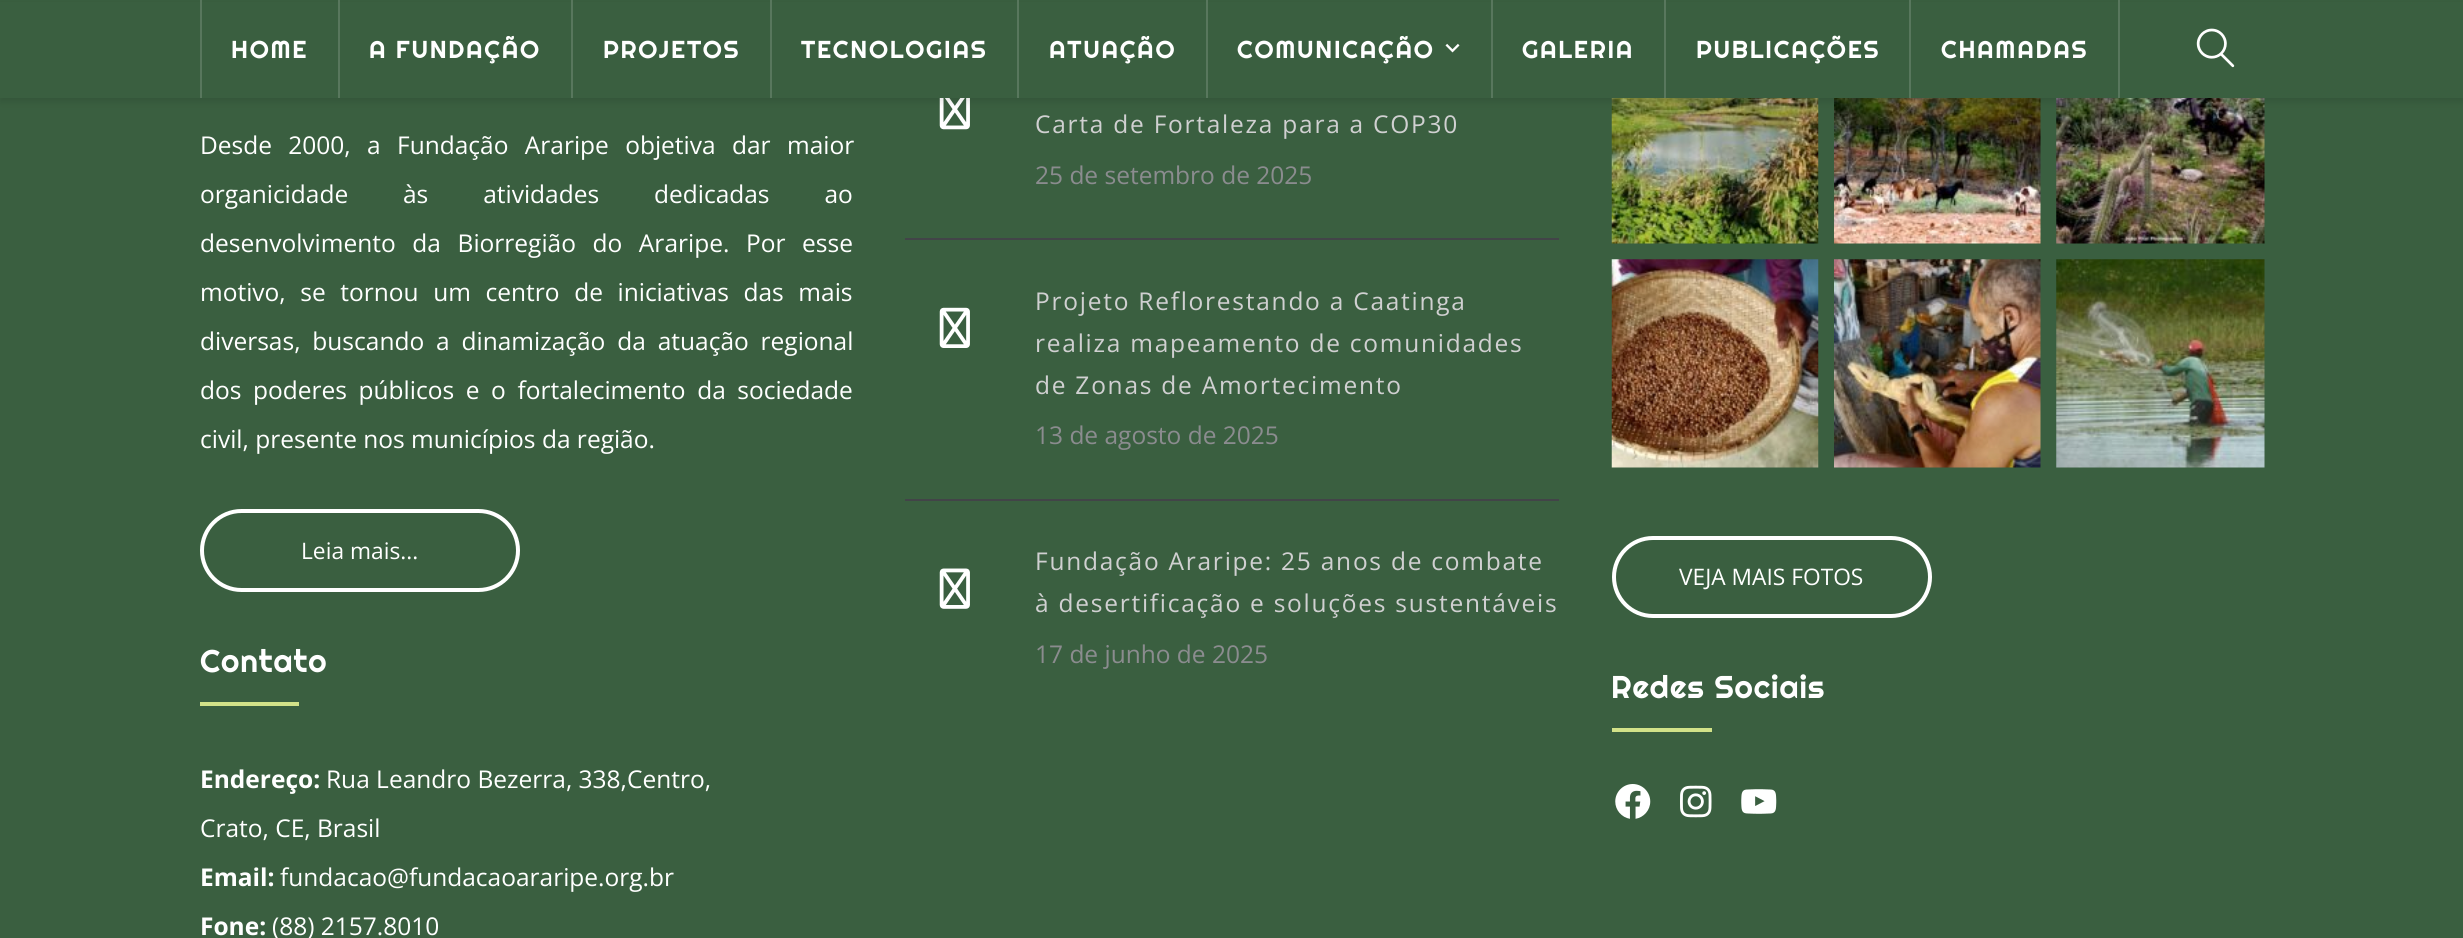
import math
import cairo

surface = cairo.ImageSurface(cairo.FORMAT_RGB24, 2463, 938)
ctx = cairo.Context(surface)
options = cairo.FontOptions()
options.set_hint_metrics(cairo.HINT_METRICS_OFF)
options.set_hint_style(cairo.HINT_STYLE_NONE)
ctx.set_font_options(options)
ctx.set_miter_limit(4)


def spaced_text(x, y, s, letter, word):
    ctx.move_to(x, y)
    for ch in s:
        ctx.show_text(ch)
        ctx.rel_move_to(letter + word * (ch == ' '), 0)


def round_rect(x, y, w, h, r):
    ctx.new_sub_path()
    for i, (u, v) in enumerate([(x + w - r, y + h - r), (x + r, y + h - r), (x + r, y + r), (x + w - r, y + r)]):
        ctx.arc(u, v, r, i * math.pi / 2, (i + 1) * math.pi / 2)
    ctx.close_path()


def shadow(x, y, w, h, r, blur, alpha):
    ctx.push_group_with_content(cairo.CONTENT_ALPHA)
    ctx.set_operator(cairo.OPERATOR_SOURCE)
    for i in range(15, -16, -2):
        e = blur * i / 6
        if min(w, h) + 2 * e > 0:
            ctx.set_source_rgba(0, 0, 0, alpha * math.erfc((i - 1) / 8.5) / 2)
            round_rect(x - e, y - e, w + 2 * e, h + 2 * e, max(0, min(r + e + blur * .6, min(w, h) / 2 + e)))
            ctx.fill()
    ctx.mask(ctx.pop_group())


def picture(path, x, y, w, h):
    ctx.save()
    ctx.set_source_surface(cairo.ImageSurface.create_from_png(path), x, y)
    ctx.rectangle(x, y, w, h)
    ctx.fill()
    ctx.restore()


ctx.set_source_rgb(0.227, 0.373, 0.251)
ctx.paint()
picture("img3.png", 939, 98, 31, 32)
picture("img6.png", 1611, 98, 208, 146)
picture("img7.png", 1834, 98, 207, 146)
picture("img8.png", 2056, 98, 209, 146)
ctx.set_source_rgb(0, 0, 0)
shadow(0, 4, 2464, 98, 0, 3.5, 0.1)
ctx.set_source_rgb(0.227, 0.373, 0.251)
ctx.rectangle(0, 2, 2463, 96)
ctx.fill()
ctx.set_source_rgb(0.345, 0.467, 0.365)
ctx.rectangle(338, 0, 2, 98)
ctx.fill()
ctx.rectangle(200, 0, 2, 98)
ctx.fill()
ctx.select_font_face("Righteous")
ctx.set_font_size(24.5)
ctx.set_source_rgb(1, 1, 1)
spaced_text(231, 58, "HOME", 1.75, 0)
ctx.set_source_rgb(0.345, 0.467, 0.365)
ctx.rectangle(571, 0, 2, 98)
ctx.fill()
ctx.set_source_rgb(1, 1, 1)
spaced_text(369, 58, "A FUNDAÇÃO", 1.75, 0)
ctx.set_source_rgb(0.345, 0.467, 0.365)
ctx.rectangle(770, 0, 2, 98)
ctx.fill()
ctx.set_source_rgb(1, 1, 1)
spaced_text(603, 58, "PROJETOS", 1.75, 0)
ctx.set_source_rgb(0.345, 0.467, 0.365)
ctx.rectangle(1017, 0, 2, 98)
ctx.fill()
ctx.set_source_rgb(1, 1, 1)
spaced_text(801, 58, "TECNOLOGIAS", 1.75, 0)
ctx.set_source_rgb(0.345, 0.467, 0.365)
ctx.rectangle(1206, 0, 2, 98)
ctx.fill()
ctx.set_source_rgb(1, 1, 1)
spaced_text(1049, 58, "ATUAÇÃO", 1.75, 0)
ctx.set_source_rgb(0.345, 0.467, 0.365)
ctx.rectangle(1491, 0, 2, 98)
ctx.fill()
ctx.set_source_rgb(1, 1, 1)
spaced_text(1237, 58, "COMUNICAÇÃO", 1.75, 0)
picture("img1.png", 1445, 43, 15, 10)
ctx.set_source_rgb(0.345, 0.467, 0.365)
ctx.rectangle(1664, 0, 2, 98)
ctx.fill()
ctx.set_source_rgb(1, 1, 1)
spaced_text(1522, 58, "GALERIA", 1.75, 0)
ctx.set_source_rgb(0.345, 0.467, 0.365)
ctx.rectangle(1909, 0, 2, 98)
ctx.fill()
ctx.set_source_rgb(1, 1, 1)
spaced_text(1696, 58, "PUBLICAÇÕES", 1.75, 0)
ctx.set_source_rgb(0.345, 0.467, 0.365)
ctx.rectangle(2118, 0, 2, 98)
ctx.fill()
ctx.set_source_rgb(1, 1, 1)
spaced_text(1941, 58, "CHAMADAS", 1.75, 0)
picture("img2.png", 2196, 28, 39, 40)
ctx.select_font_face("Open Sans")
spaced_text(200, 154, "Desde 2000, a Fundação Araripe objetiva dar maior", 0, 10)
spaced_text(200, 203, "organicidade às atividades dedicadas ao", 0, 48.5)
spaced_text(200, 252, "desenvolvimento da Biorregião do Araripe. Por esse", 0, 10.25)
spaced_text(200, 301, "motivo, se tornou um centro de iniciativas das mais", 0, 8.25)
spaced_text(200, 350, "diversas, buscando a dinamização da atuação regional", 0, 5.5)
spaced_text(200, 399, "dos poderes públicos e o fortalecimento da sociedade", 0, 5.25)
ctx.move_to(200, 448)
ctx.show_text("civil, presente nos municípios da região.")
round_rect(202, 511, 316, 79, 39.5)
ctx.set_line_width(4)
ctx.stroke()
ctx.set_font_size(22.75)
ctx.move_to(301, 559)
ctx.show_text("Leia mais...")
ctx.select_font_face("Righteous")
ctx.set_font_size(31.5)
spaced_text(200, 672, "Contato", 0.9, 0)
ctx.set_source_rgb(0.824, 0.886, 0.537)
ctx.rectangle(200, 702, 99, 4)
ctx.fill()
ctx.select_font_face("Open Sans", cairo.FONT_SLANT_NORMAL, cairo.FONT_WEIGHT_BOLD)
ctx.set_font_size(24.5)
ctx.set_source_rgb(1, 1, 1)
ctx.move_to(200, 788)
ctx.show_text("Endereço:")
ctx.select_font_face("Open Sans")
ctx.move_to(326, 788)
ctx.show_text("Rua Leandro Bezerra, 338,Centro,")
ctx.move_to(200, 837)
ctx.show_text("Crato, CE, Brasil")
ctx.select_font_face("Open Sans", cairo.FONT_SLANT_NORMAL, cairo.FONT_WEIGHT_BOLD)
ctx.move_to(200, 886)
ctx.show_text("Email:")
ctx.select_font_face("Open Sans")
ctx.move_to(280, 886)
ctx.show_text("fundacao@fundacaoararipe.org.br")
ctx.select_font_face("Open Sans", cairo.FONT_SLANT_NORMAL, cairo.FONT_WEIGHT_BOLD)
ctx.move_to(200, 935)
ctx.show_text("Fone:")
ctx.select_font_face("Open Sans")
ctx.move_to(272, 935)
ctx.show_text("(88) 2157.8010")
ctx.set_source_rgb(0.816, 0.816, 0.82)
spaced_text(1035, 133, "Carta de Fortaleza para a COP30", 1.75, 0)
ctx.set_source_rgb(0.545, 0.549, 0.561)
ctx.move_to(1035, 184)
ctx.show_text("25 de setembro de 2025")
ctx.set_source_rgb(0.259, 0.267, 0.282)
ctx.rectangle(905, 238, 654, 2)
ctx.fill()
picture("img4.png", 939, 307, 31, 41)
ctx.set_source_rgb(0.816, 0.816, 0.82)
spaced_text(1035, 310, "Projeto Reflorestando a Caatinga", 1.75, 0)
spaced_text(1035, 352, "realiza mapeamento de comunidades", 1.75, 0)
spaced_text(1035, 394, "de Zonas de Amortecimento", 1.75, 0)
ctx.set_source_rgb(0.545, 0.549, 0.561)
ctx.move_to(1035, 444)
ctx.show_text("13 de agosto de 2025")
ctx.set_source_rgb(0.259, 0.267, 0.282)
ctx.rectangle(905, 499, 654, 2)
ctx.fill()
picture("img5.png", 939, 568, 31, 41)
ctx.set_source_rgb(0.816, 0.816, 0.82)
spaced_text(1035, 570, "Fundação Araripe: 25 anos de combate", 1.75, 0)
spaced_text(1035, 612, "à desertificação e soluções sustentáveis", 1.75, 0)
ctx.set_source_rgb(0.545, 0.549, 0.561)
ctx.move_to(1035, 663)
ctx.show_text("17 de junho de 2025")
picture("img9.png", 1611, 259, 208, 209)
picture("img10.png", 1834, 259, 207, 209)
picture("img11.png", 2056, 259, 209, 209)
round_rect(1614, 538, 316, 78, 39)
ctx.set_source_rgb(1, 1, 1)
ctx.stroke()
ctx.set_font_size(22.75)
ctx.move_to(1679, 585)
ctx.show_text("VEJA MAIS FOTOS")
ctx.select_font_face("Righteous")
ctx.set_font_size(31.5)
spaced_text(1611, 698, "Redes Sociais", 0.9, 0)
ctx.set_source_rgb(0.824, 0.886, 0.537)
ctx.rectangle(1612, 728, 100, 4)
ctx.fill()
picture("img12.png", 1615, 784, 36, 35)
picture("img13.png", 1680, 785, 32, 33)
picture("img14.png", 1741, 789, 36, 25)
surface.write_to_png("page.png")
